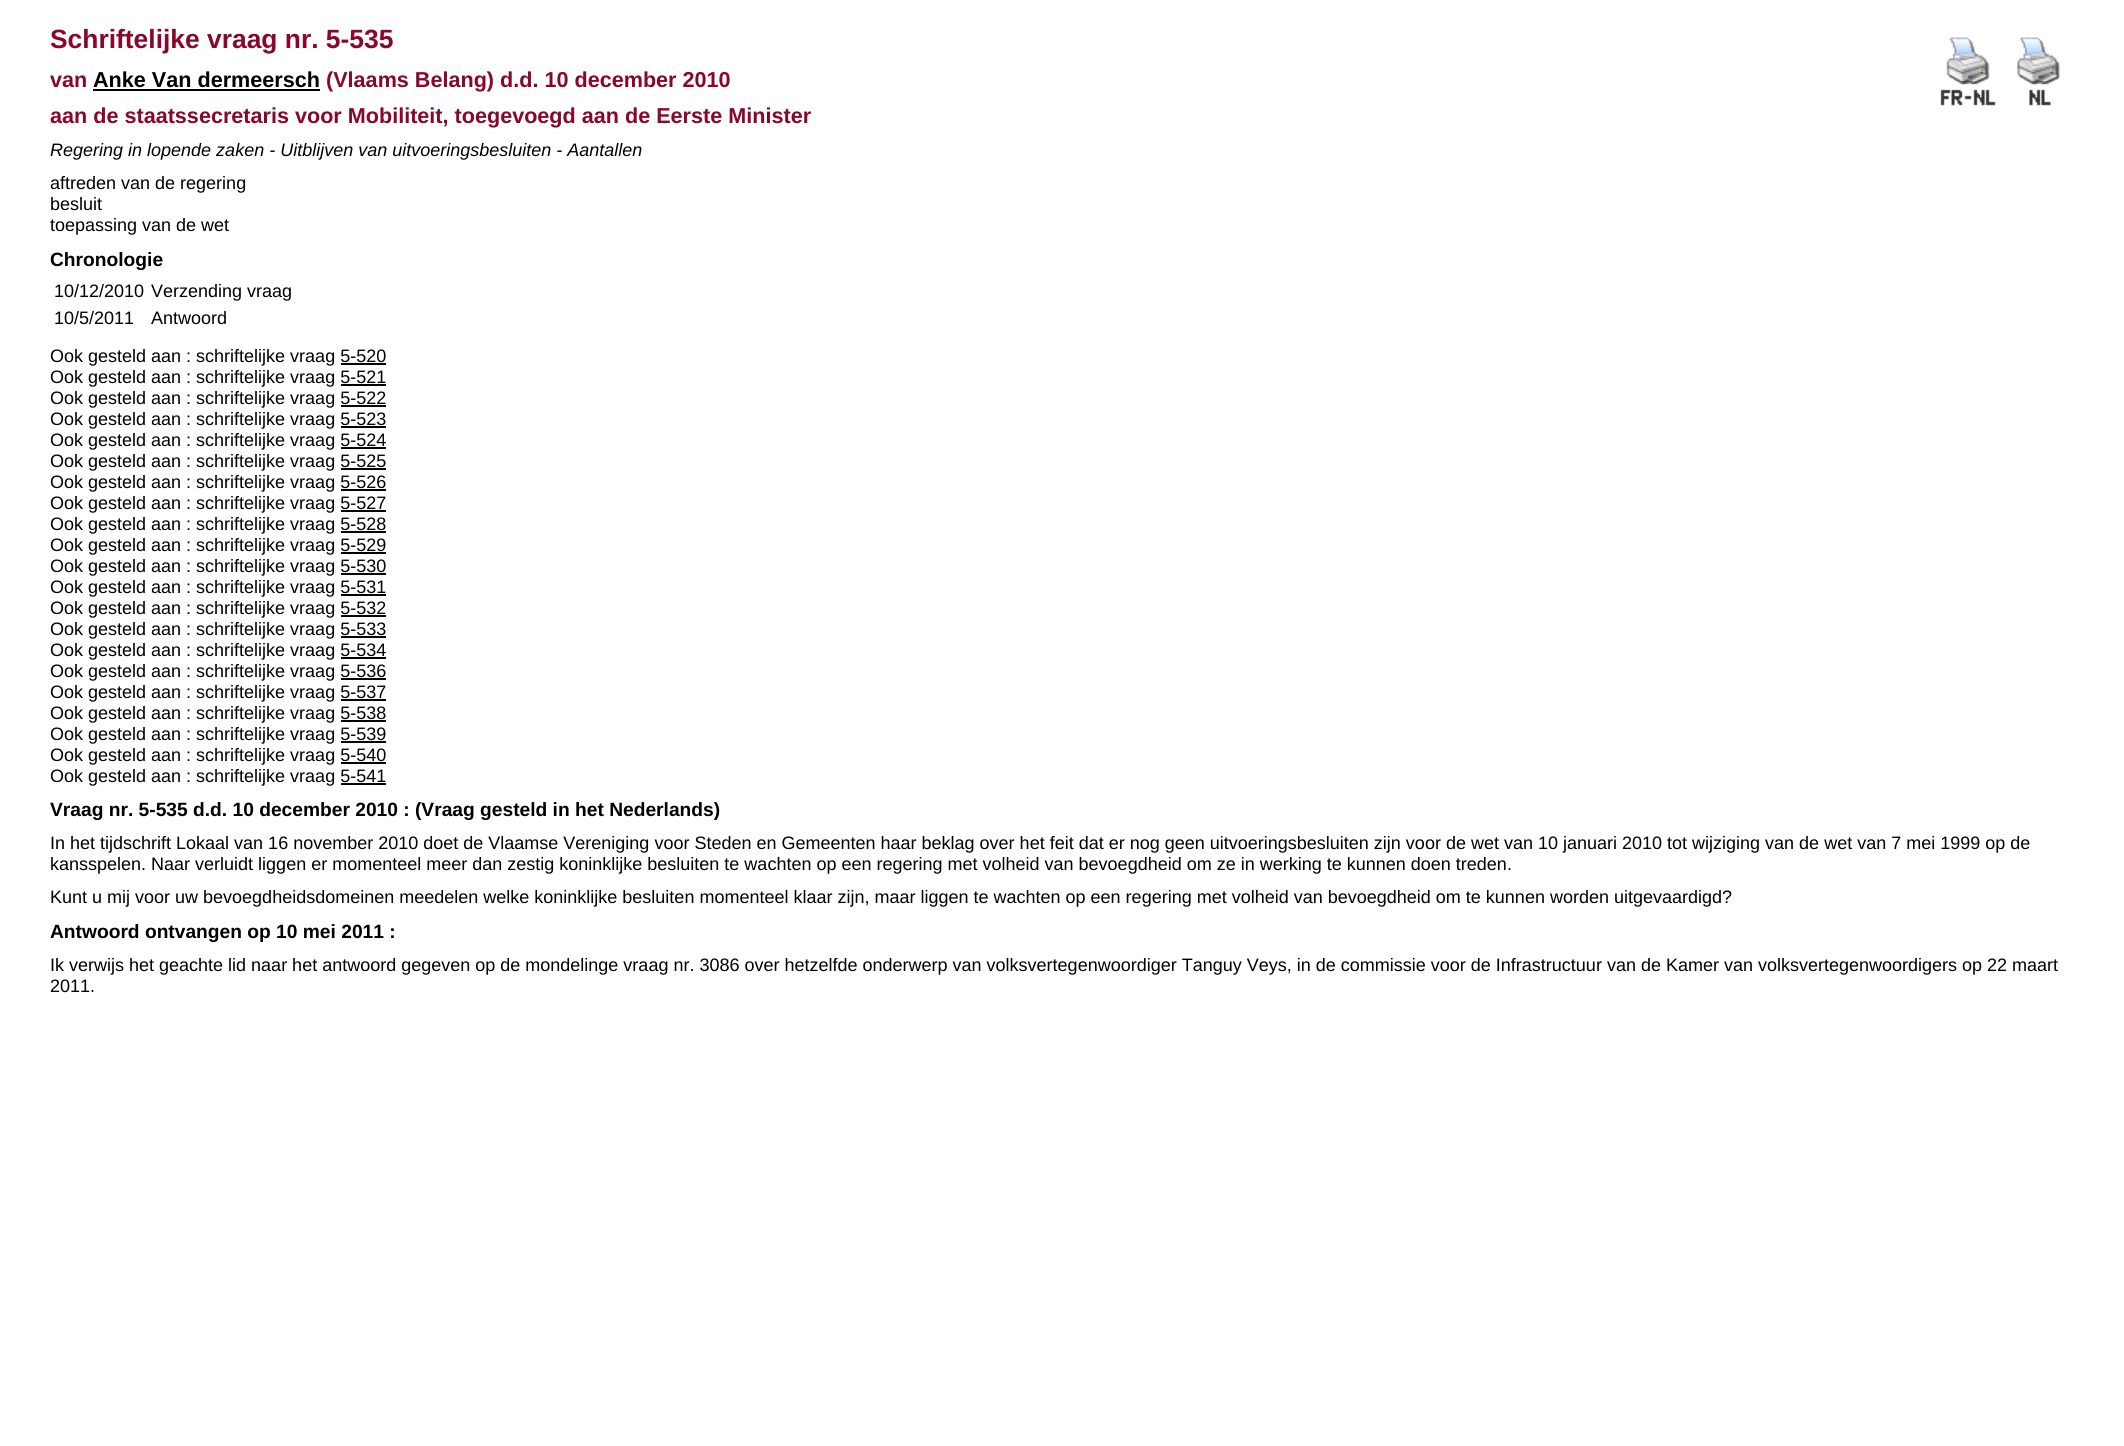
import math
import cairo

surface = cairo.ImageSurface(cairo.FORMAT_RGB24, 2124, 1446)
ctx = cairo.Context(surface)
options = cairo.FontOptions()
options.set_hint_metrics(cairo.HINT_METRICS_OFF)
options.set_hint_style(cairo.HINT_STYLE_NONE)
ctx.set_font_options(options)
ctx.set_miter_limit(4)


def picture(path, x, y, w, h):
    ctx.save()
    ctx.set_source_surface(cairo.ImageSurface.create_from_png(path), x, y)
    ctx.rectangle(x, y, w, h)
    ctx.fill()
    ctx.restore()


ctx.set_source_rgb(1, 1, 1)
ctx.paint()
ctx.select_font_face("Liberation Sans", cairo.FONT_SLANT_NORMAL, cairo.FONT_WEIGHT_BOLD)
ctx.set_font_size(26.4)
ctx.set_source_rgb(0.541, 0.024, 0.169)
ctx.move_to(50, 48)
ctx.show_text("Schriftelijke vraag nr. 5-535")
picture("img1.png", 1940, 37, 56, 69)
picture("img2.png", 2017, 37, 43, 69)
ctx.set_font_size(21.6)
ctx.move_to(50, 87)
ctx.show_text("van")
ctx.set_source_rgb(0, 0, 0)
ctx.move_to(93, 87)
ctx.show_text("Anke Van dermeersch")
ctx.rectangle(93, 89, 227, 2)
ctx.fill()
ctx.set_source_rgb(0.541, 0.024, 0.169)
ctx.move_to(326, 87)
ctx.show_text("(Vlaams Belang) d.d. 10 december 2010")
ctx.move_to(50, 123)
ctx.show_text("aan de staatssecretaris voor Mobiliteit, toegevoegd aan de Eerste Minister")
ctx.select_font_face("Liberation Sans", cairo.FONT_SLANT_ITALIC)
ctx.set_font_size(18)
ctx.set_source_rgb(0, 0, 0)
ctx.move_to(50, 156)
ctx.show_text("Regering in lopende zaken - Uitblijven van uitvoeringsbesluiten - Aantallen")
ctx.select_font_face("Liberation Sans")
ctx.move_to(50, 189)
ctx.show_text("aftreden van de regering")
ctx.move_to(50, 210)
ctx.show_text("besluit")
ctx.move_to(50, 231)
ctx.show_text("toepassing van de wet")
ctx.select_font_face("Liberation Sans", cairo.FONT_SLANT_NORMAL, cairo.FONT_WEIGHT_BOLD)
ctx.set_font_size(19.2)
ctx.move_to(50, 266)
ctx.show_text("Chronologie")
ctx.select_font_face("Liberation Sans")
ctx.set_font_size(18)
ctx.move_to(54, 297)
ctx.show_text("10/12/2010")
ctx.move_to(151, 297)
ctx.show_text("Verzending vraag")
ctx.move_to(54, 324)
ctx.show_text("10/5/2011")
ctx.move_to(151, 324)
ctx.show_text("Antwoord")
ctx.move_to(50, 362)
ctx.show_text("Ook gesteld aan : schriftelijke vraag 5-520")
ctx.rectangle(341, 363, 45, 2)
ctx.fill()
ctx.move_to(50, 383)
ctx.show_text("Ook gesteld aan : schriftelijke vraag 5-521")
ctx.rectangle(341, 384, 45, 2)
ctx.fill()
ctx.move_to(50, 404)
ctx.show_text("Ook gesteld aan : schriftelijke vraag 5-522")
ctx.rectangle(341, 405, 45, 2)
ctx.fill()
ctx.move_to(50, 425)
ctx.show_text("Ook gesteld aan : schriftelijke vraag 5-523")
ctx.rectangle(341, 426, 45, 2)
ctx.fill()
ctx.move_to(50, 446)
ctx.show_text("Ook gesteld aan : schriftelijke vraag 5-524")
ctx.rectangle(341, 447, 45, 2)
ctx.fill()
ctx.move_to(50, 467)
ctx.show_text("Ook gesteld aan : schriftelijke vraag 5-525")
ctx.rectangle(341, 468, 45, 2)
ctx.fill()
ctx.move_to(50, 488)
ctx.show_text("Ook gesteld aan : schriftelijke vraag 5-526")
ctx.rectangle(341, 489, 45, 2)
ctx.fill()
ctx.move_to(50, 509)
ctx.show_text("Ook gesteld aan : schriftelijke vraag 5-527")
ctx.rectangle(341, 510, 45, 2)
ctx.fill()
ctx.move_to(50, 530)
ctx.show_text("Ook gesteld aan : schriftelijke vraag 5-528")
ctx.rectangle(341, 531, 45, 2)
ctx.fill()
ctx.move_to(50, 551)
ctx.show_text("Ook gesteld aan : schriftelijke vraag 5-529")
ctx.rectangle(341, 552, 45, 2)
ctx.fill()
ctx.move_to(50, 572)
ctx.show_text("Ook gesteld aan : schriftelijke vraag 5-530")
ctx.rectangle(341, 573, 45, 2)
ctx.fill()
ctx.move_to(50, 593)
ctx.show_text("Ook gesteld aan : schriftelijke vraag 5-531")
ctx.rectangle(341, 594, 45, 2)
ctx.fill()
ctx.move_to(50, 614)
ctx.show_text("Ook gesteld aan : schriftelijke vraag 5-532")
ctx.rectangle(341, 615, 45, 2)
ctx.fill()
ctx.move_to(50, 635)
ctx.show_text("Ook gesteld aan : schriftelijke vraag 5-533")
ctx.rectangle(341, 636, 45, 2)
ctx.fill()
ctx.move_to(50, 656)
ctx.show_text("Ook gesteld aan : schriftelijke vraag 5-534")
ctx.rectangle(341, 657, 45, 2)
ctx.fill()
ctx.move_to(50, 677)
ctx.show_text("Ook gesteld aan : schriftelijke vraag 5-536")
ctx.rectangle(341, 678, 45, 2)
ctx.fill()
ctx.move_to(50, 698)
ctx.show_text("Ook gesteld aan : schriftelijke vraag 5-537")
ctx.rectangle(341, 699, 45, 2)
ctx.fill()
ctx.move_to(50, 719)
ctx.show_text("Ook gesteld aan : schriftelijke vraag 5-538")
ctx.rectangle(341, 720, 45, 2)
ctx.fill()
ctx.move_to(50, 740)
ctx.show_text("Ook gesteld aan : schriftelijke vraag 5-539")
ctx.rectangle(341, 741, 45, 2)
ctx.fill()
ctx.move_to(50, 761)
ctx.show_text("Ook gesteld aan : schriftelijke vraag 5-540")
ctx.rectangle(341, 762, 45, 2)
ctx.fill()
ctx.move_to(50, 782)
ctx.show_text("Ook gesteld aan : schriftelijke vraag 5-541")
ctx.rectangle(341, 783, 45, 2)
ctx.fill()
ctx.select_font_face("Liberation Sans", cairo.FONT_SLANT_NORMAL, cairo.FONT_WEIGHT_BOLD)
ctx.set_font_size(19.2)
ctx.move_to(50, 816)
ctx.show_text("Vraag nr. 5-535 d.d. 10 december 2010 : (Vraag gesteld in het Nederlands)")
ctx.select_font_face("Liberation Sans")
ctx.set_font_size(18)
ctx.move_to(50, 849)
ctx.show_text("In het tijdschrift Lokaal van 16 november 2010 doet de Vlaamse Vereniging voor Steden en Gemeenten haar beklag over het feit dat er nog geen uitvoeringsbesluiten zijn voor de wet van 10 januari 2010 tot wijziging van de wet van 7 mei 1999 op de")
ctx.move_to(50, 870)
ctx.show_text("kansspelen. Naar verluidt liggen er momenteel meer dan zestig koninklijke besluiten te wachten op een regering met volheid van bevoegdheid om ze in werking te kunnen doen treden.")
ctx.move_to(50, 903)
ctx.show_text("Kunt u mij voor uw bevoegdheidsdomeinen meedelen welke koninklijke besluiten momenteel klaar zijn, maar liggen te wachten op een regering met volheid van bevoegdheid om te kunnen worden uitgevaardigd?")
ctx.select_font_face("Liberation Sans", cairo.FONT_SLANT_NORMAL, cairo.FONT_WEIGHT_BOLD)
ctx.set_font_size(19.2)
ctx.move_to(50, 938)
ctx.show_text("Antwoord ontvangen op 10 mei 2011 :")
ctx.select_font_face("Liberation Sans")
ctx.set_font_size(18)
ctx.move_to(50, 971)
ctx.show_text("Ik verwijs het geachte lid naar het antwoord gegeven op de mondelinge vraag nr. 3086 over hetzelfde onderwerp van volksvertegenwoordiger Tanguy Veys, in de commissie voor de Infrastructuur van de Kamer van volksvertegenwoordigers op 22 maart")
ctx.move_to(50, 992)
ctx.show_text("2011.")
surface.write_to_png("page.png")
